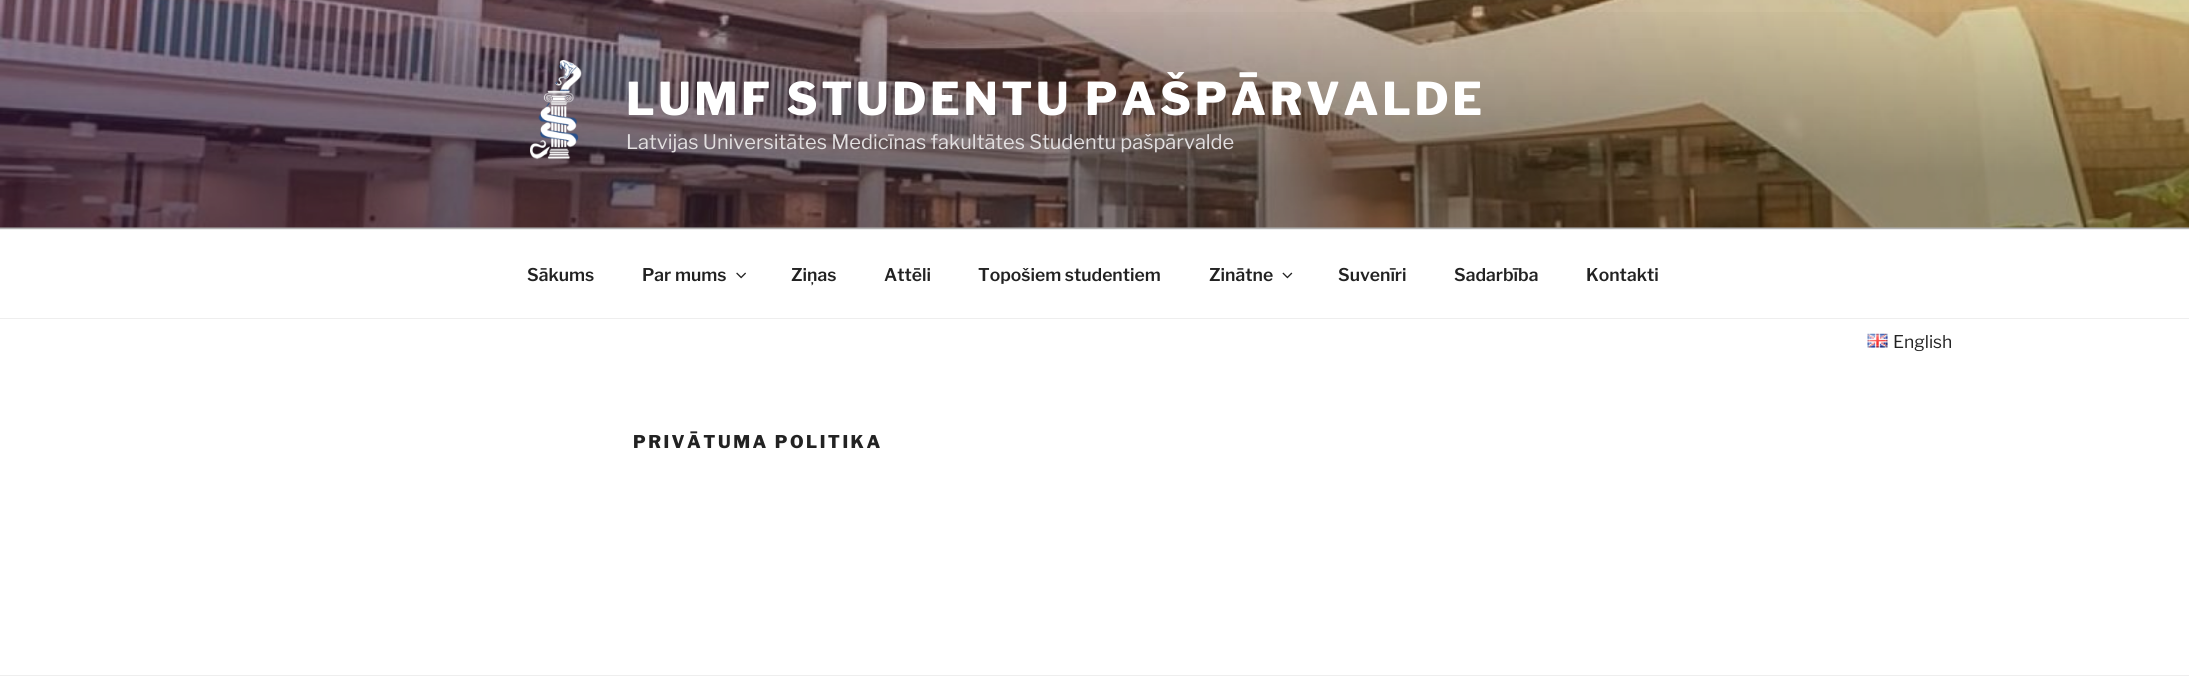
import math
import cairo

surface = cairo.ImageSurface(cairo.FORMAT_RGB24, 2189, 691)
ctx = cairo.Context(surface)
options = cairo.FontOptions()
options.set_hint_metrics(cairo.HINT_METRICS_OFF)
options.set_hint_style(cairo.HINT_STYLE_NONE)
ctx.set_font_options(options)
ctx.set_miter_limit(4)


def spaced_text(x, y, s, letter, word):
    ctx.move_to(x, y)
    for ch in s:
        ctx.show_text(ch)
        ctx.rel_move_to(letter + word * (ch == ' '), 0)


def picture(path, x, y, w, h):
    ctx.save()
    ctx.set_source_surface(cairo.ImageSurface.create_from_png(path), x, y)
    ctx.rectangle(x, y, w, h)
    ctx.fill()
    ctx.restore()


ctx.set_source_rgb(1, 1, 1)
ctx.paint()
ctx.set_source_rgb(0.98, 0.98, 0.98)
ctx.rectangle(0, 227, 2189, 2)
ctx.fill()
picture("img1.png", 0, 0, 2189, 228)
gradient = cairo.LinearGradient(1095, 0, 1095, 229)
gradient.add_color_stop_rgba(0, 0, 0, 0, 0)
gradient.add_color_stop_rgba(0.75, 0, 0, 0, 0.3)
gradient.add_color_stop_rgba(1, 0, 0, 0, 0.3)
ctx.set_source(gradient)
ctx.rectangle(0, 12, 2189, 217)
ctx.fill()
picture("img2.png", 530, 60, 52, 100)
ctx.select_font_face("Libre Franklin ExtraBold")
ctx.set_font_size(45)
ctx.set_source_rgb(1, 1, 1)
spaced_text(626, 115, "LUMF STUDENTU PAŠPĀRVALDE", 3.6, 0)
ctx.select_font_face("Libre Franklin")
ctx.set_font_size(20)
ctx.set_source_rgb(0.886, 0.875, 0.878)
ctx.move_to(626, 149)
ctx.show_text("Latvijas Universitātes Medicīnas fakultātes Studentu pašpārvalde")
ctx.set_source_rgb(0.933, 0.933, 0.933)
ctx.rectangle(0, 229, 2189, 1)
ctx.fill()
ctx.rectangle(0, 318, 2189, 1)
ctx.fill()
ctx.select_font_face("Libre Franklin SemiBold")
ctx.set_font_size(17.5)
ctx.set_source_rgb(0.133, 0.133, 0.133)
ctx.move_to(527, 281)
ctx.show_text("Sākums")
ctx.move_to(642, 281)
ctx.show_text("Par mums")
picture("img3.png", 736, 272, 10, 7)
ctx.move_to(791, 281)
ctx.show_text("Ziņas")
ctx.move_to(884, 281)
ctx.show_text("Attēli")
ctx.move_to(978, 281)
ctx.show_text("Topošiem studentiem")
ctx.move_to(1209, 281)
ctx.show_text("Zinātne")
picture("img4.png", 1282, 272, 11, 7)
ctx.move_to(1338, 281)
ctx.show_text("Suvenīri")
ctx.move_to(1454, 281)
ctx.show_text("Sadarbība")
ctx.move_to(1586, 281)
ctx.show_text("Kontakti")
ctx.set_source_rgb(0.933, 0.933, 0.933)
ctx.rectangle(0, 675, 2189, 1)
ctx.fill()
picture("img5.png", 1867, 333, 21, 15)
ctx.select_font_face("Libre Franklin")
ctx.set_source_rgb(0.133, 0.133, 0.133)
ctx.move_to(1893, 348)
ctx.show_text("English")
ctx.select_font_face("Libre Franklin ExtraBold")
spaced_text(633, 448, "PRIVĀTUMA POLITIKA", 2.5, 0)
surface.write_to_png("page.png")
